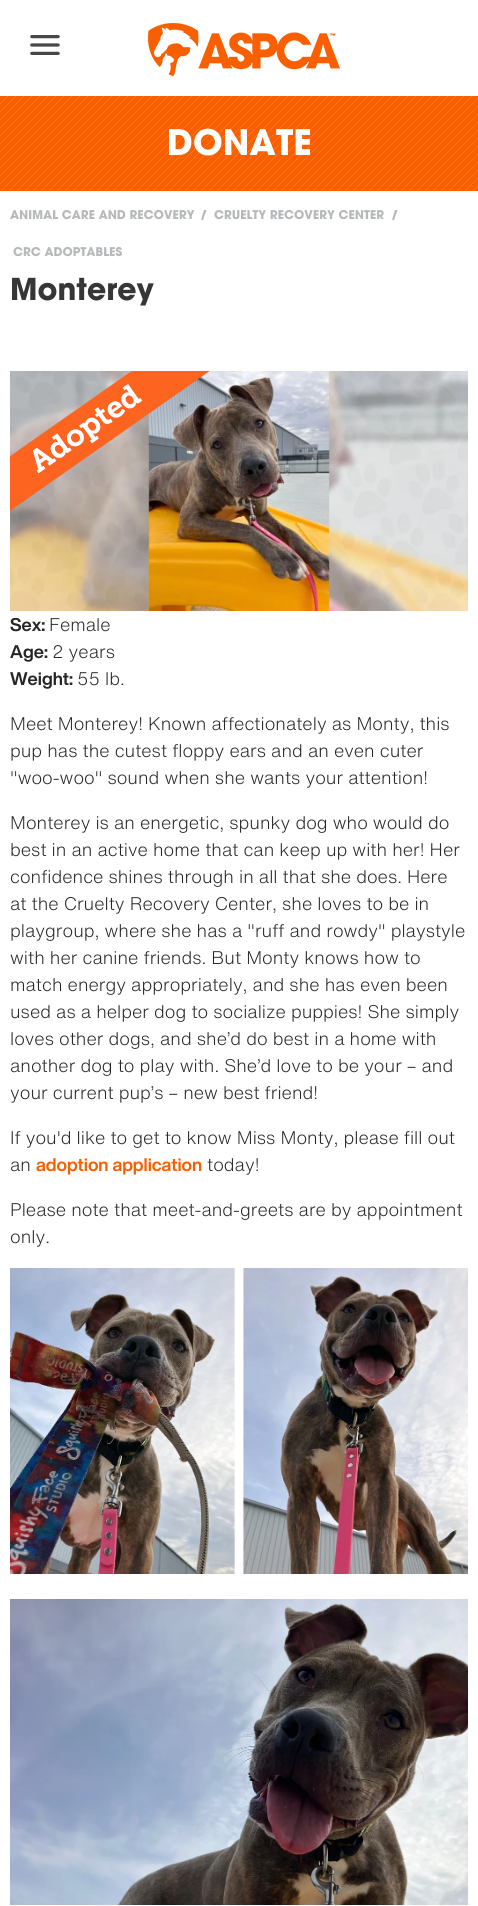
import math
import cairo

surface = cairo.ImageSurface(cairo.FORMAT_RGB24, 478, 1906)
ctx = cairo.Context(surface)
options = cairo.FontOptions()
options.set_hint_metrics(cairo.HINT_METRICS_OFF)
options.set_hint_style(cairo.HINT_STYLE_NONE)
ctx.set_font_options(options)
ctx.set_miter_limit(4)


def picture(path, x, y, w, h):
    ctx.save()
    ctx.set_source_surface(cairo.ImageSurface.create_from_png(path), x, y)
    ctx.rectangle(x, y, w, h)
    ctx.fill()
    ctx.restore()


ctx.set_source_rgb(1, 1, 1)
ctx.paint()
picture("img1.png", 30, 35, 30, 20)
picture("img2.png", 148, 23, 192, 53)
picture("img3.png", 0, 96, 478, 95)
picture("img4.png", 169, 128, 142, 28)
picture("img5.png", 10, 210, 185, 10)
ctx.set_source_rgb(0.714, 0.722, 0.729)
ctx.new_path()
ctx.move_to(203, 220)
ctx.line_to(201, 220)
ctx.line_to(204, 210)
ctx.line_to(206.5, 210)
ctx.close_path()
ctx.fill()
picture("img6.png", 214, 210, 170, 10)
ctx.new_path()
ctx.move_to(394, 220)
ctx.line_to(392, 220)
ctx.line_to(395, 210)
ctx.line_to(397.5, 210)
ctx.close_path()
ctx.fill()
picture("img7.png", 13, 247, 109, 10)
picture("img8.png", 12, 277, 142, 29)
picture("img9.png", 10, 371, 458, 240)
picture("img10.png", 10, 371, 200, 140)
ctx.select_font_face("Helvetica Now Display", cairo.FONT_SLANT_NORMAL, cairo.FONT_WEIGHT_BOLD)
ctx.set_font_size(18)
ctx.set_source_rgb(0.153, 0.149, 0.149)
ctx.move_to(10, 631)
ctx.show_text("Sex:")
ctx.select_font_face("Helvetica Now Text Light")
ctx.move_to(49, 631)
ctx.show_text("Female")
ctx.select_font_face("Helvetica Now Display", cairo.FONT_SLANT_NORMAL, cairo.FONT_WEIGHT_BOLD)
ctx.move_to(10, 658)
ctx.show_text("Age:")
ctx.select_font_face("Helvetica Now Text Light")
ctx.move_to(52, 658)
ctx.show_text("2 years")
ctx.select_font_face("Helvetica Now Display", cairo.FONT_SLANT_NORMAL, cairo.FONT_WEIGHT_BOLD)
ctx.move_to(10, 685)
ctx.show_text("Weight:")
ctx.select_font_face("Helvetica Now Text Light")
ctx.move_to(77, 685)
ctx.show_text("55 lb.")
ctx.move_to(10, 730)
ctx.show_text("Meet Monterey! Known affectionately as Monty, this")
ctx.move_to(10, 757)
ctx.show_text("pup has the cutest floppy ears and an even cuter")
ctx.move_to(10, 784)
ctx.show_text("\"woo-woo\" sound when she wants your attention!")
ctx.move_to(10, 829)
ctx.show_text("Monterey is an energetic, spunky dog who would do")
ctx.move_to(10, 856)
ctx.show_text("best in an active home that can keep up with her! Her")
ctx.move_to(10, 883)
ctx.show_text("confidence shines through in all that she does. Here")
ctx.move_to(10, 910)
ctx.show_text("at the Cruelty Recovery Center, she loves to be in")
ctx.move_to(10, 937)
ctx.show_text("playgroup, where she has a \"ruff and rowdy\" playstyle")
ctx.move_to(10, 964)
ctx.show_text("with her canine friends. But Monty knows how to")
ctx.move_to(10, 991)
ctx.show_text("match energy appropriately, and she has even been")
ctx.move_to(10, 1018)
ctx.show_text("used as a helper dog to socialize puppies! She simply")
ctx.move_to(10, 1045)
ctx.show_text("loves other dogs, and she’d do best in a home with")
ctx.move_to(10, 1072)
ctx.show_text("another dog to play with. She’d love to be your – and")
ctx.move_to(10, 1099)
ctx.show_text("your current pup’s – new best friend!")
ctx.move_to(10, 1144)
ctx.show_text("If you'd like to get to know Miss Monty, please fill out")
ctx.move_to(10, 1171)
ctx.show_text("an")
ctx.select_font_face("Helvetica Now Display", cairo.FONT_SLANT_NORMAL, cairo.FONT_WEIGHT_BOLD)
ctx.set_source_rgb(0.969, 0.373, 0)
ctx.move_to(36, 1171)
ctx.show_text("adoption application")
ctx.select_font_face("Helvetica Now Text Light")
ctx.set_source_rgb(0.153, 0.149, 0.149)
ctx.move_to(207, 1171)
ctx.show_text("today!")
ctx.move_to(10, 1216)
ctx.show_text("Please note that meet-and-greets are by appointment")
ctx.move_to(10, 1243)
ctx.show_text("only.")
picture("img11.png", 10, 1268, 458, 306)
picture("img12.png", 10, 1599, 458, 306)
surface.write_to_png("page.png")
